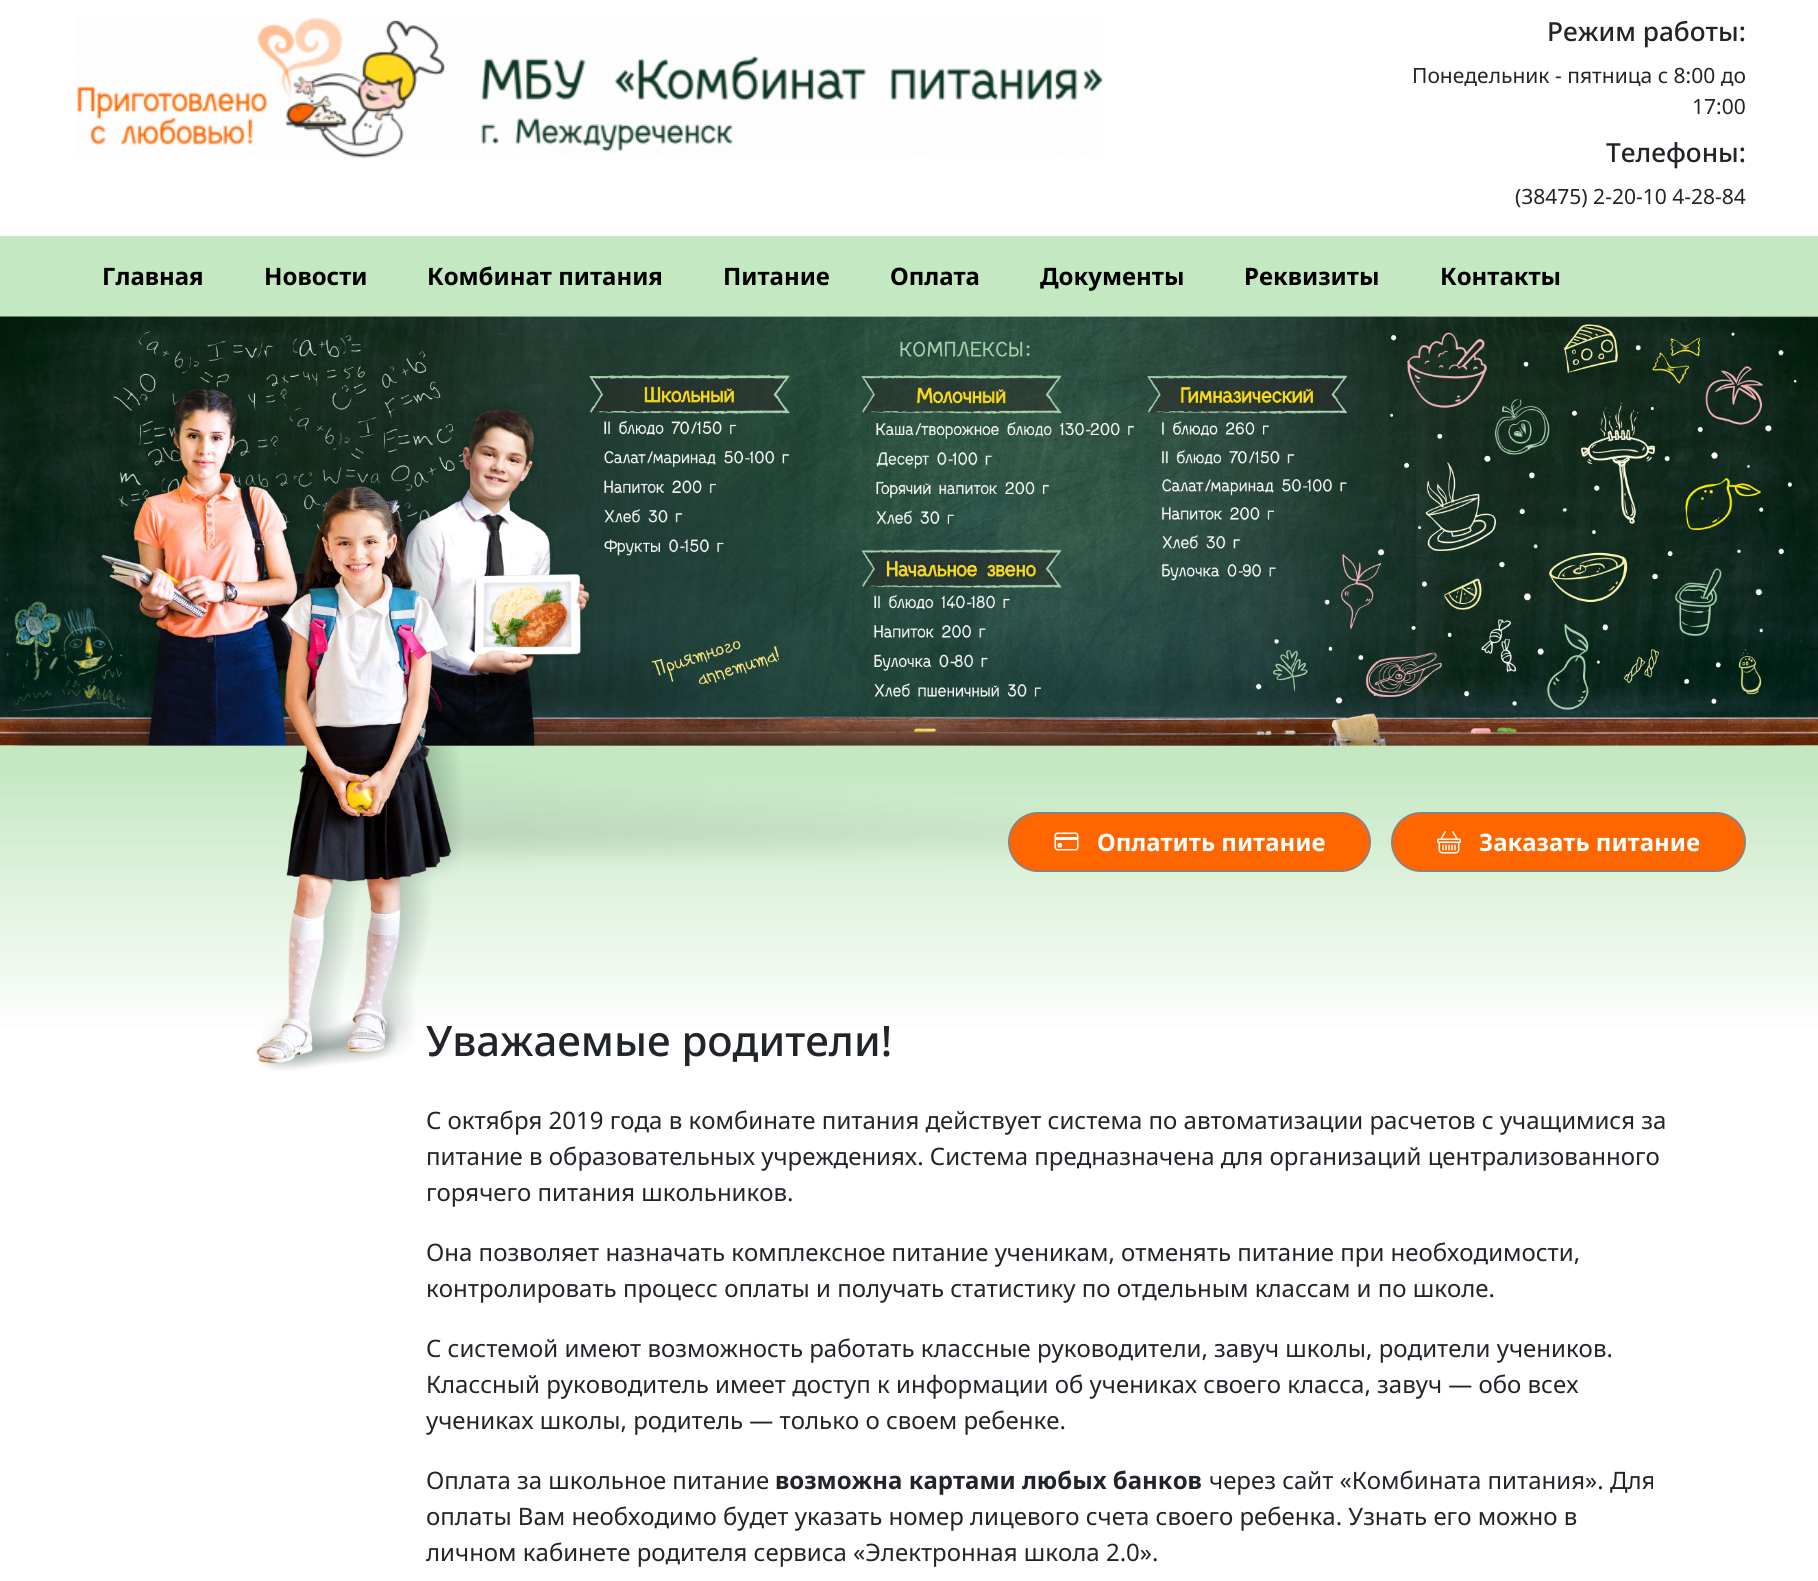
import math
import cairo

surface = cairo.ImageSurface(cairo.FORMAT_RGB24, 1818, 1581)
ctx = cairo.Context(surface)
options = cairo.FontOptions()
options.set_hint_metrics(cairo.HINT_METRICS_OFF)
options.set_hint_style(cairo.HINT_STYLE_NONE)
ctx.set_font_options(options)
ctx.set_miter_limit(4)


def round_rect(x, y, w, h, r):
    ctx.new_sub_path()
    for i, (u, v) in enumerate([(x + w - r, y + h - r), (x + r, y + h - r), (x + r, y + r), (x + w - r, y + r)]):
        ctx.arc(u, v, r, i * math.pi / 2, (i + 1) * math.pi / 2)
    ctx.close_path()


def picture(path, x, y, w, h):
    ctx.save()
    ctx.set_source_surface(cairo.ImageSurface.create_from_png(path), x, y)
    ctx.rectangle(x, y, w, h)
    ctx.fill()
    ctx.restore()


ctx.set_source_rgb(1, 1, 1)
ctx.paint()
picture("img1.png", 76, 17, 1027, 141)
ctx.select_font_face("Noto Sans Medium")
ctx.set_font_size(26.25)
ctx.set_source_rgb(0.129, 0.145, 0.161)
ctx.move_to(1547, 41)
ctx.show_text("Режим работы:")
ctx.select_font_face("Noto Sans")
ctx.set_font_size(21)
ctx.move_to(1412, 83)
ctx.show_text("Понедельник - пятница с 8:00 до")
ctx.move_to(1692, 114)
ctx.show_text("17:00")
ctx.select_font_face("Noto Sans Medium")
ctx.set_font_size(26.25)
ctx.move_to(1606, 162)
ctx.show_text("Телефоны:")
ctx.select_font_face("Noto Sans")
ctx.set_font_size(21)
ctx.move_to(1515, 204)
ctx.show_text("(38475) 2-20-10 4-28-84")
ctx.set_source_rgb(0.769, 0.91, 0.757)
ctx.rectangle(0, 236, 1818, 81)
ctx.fill()
ctx.select_font_face("Noto Sans", cairo.FONT_SLANT_NORMAL, cairo.FONT_WEIGHT_BOLD)
ctx.set_font_size(24)
ctx.set_source_rgb(0, 0, 0)
ctx.move_to(102, 285)
ctx.show_text("Главная")
ctx.move_to(264, 285)
ctx.show_text("Новости")
ctx.move_to(427, 285)
ctx.show_text("Комбинат питания")
ctx.move_to(723, 285)
ctx.show_text("Питание")
ctx.move_to(890, 285)
ctx.show_text("Оплата")
ctx.move_to(1040, 285)
ctx.show_text("Документы")
ctx.move_to(1244, 285)
ctx.show_text("Реквизиты")
ctx.move_to(1440, 285)
ctx.show_text("Контакты")
picture("img2.png", 0, 316, 1818, 755)
ctx.set_source_rgb(1, 0.4, 0)
round_rect(1009, 813, 361, 58, 29)
ctx.fill_preserve()
ctx.set_source_rgb(0.58, 0.494, 0.482)
ctx.stroke()
picture("img3.png", 1054, 832, 25, 19)
ctx.set_source_rgb(1, 1, 1)
ctx.move_to(1097, 851)
ctx.show_text("Оплатить питание")
ctx.set_source_rgb(1, 0.4, 0)
round_rect(1392, 813, 353, 58, 29)
ctx.fill_preserve()
ctx.set_source_rgb(0.58, 0.494, 0.482)
ctx.stroke()
picture("img4.png", 1437, 831, 24, 23)
ctx.set_source_rgb(1, 1, 1)
ctx.move_to(1479, 851)
ctx.show_text("Заказать питание")
ctx.select_font_face("Noto Sans Medium")
ctx.set_font_size(42)
ctx.set_source_rgb(0.129, 0.145, 0.161)
ctx.move_to(426, 1056)
ctx.show_text("Уважаемые родители!")
ctx.select_font_face("Noto Sans")
ctx.set_font_size(24)
ctx.move_to(426, 1129)
ctx.show_text("С октября 2019 года в комбинате питания действует система по автоматизации расчетов с учащимися за")
ctx.move_to(426, 1165)
ctx.show_text("питание в образовательных учреждениях. Система предназначена для организаций централизованного")
ctx.move_to(426, 1201)
ctx.show_text("горячего питания школьников.")
ctx.move_to(426, 1261)
ctx.show_text("Она позволяет назначать комплексное питание ученикам, отменять питание при необходимости,")
ctx.move_to(426, 1297)
ctx.show_text("контролировать процесс оплаты и получать статистику по отдельным классам и по школе.")
ctx.move_to(426, 1357)
ctx.show_text("С системой имеют возможность работать классные руководители, завуч школы, родители учеников.")
ctx.move_to(426, 1393)
ctx.show_text("Классный руководитель имеет доступ к информации об учениках своего класса, завуч — обо всех")
ctx.move_to(426, 1429)
ctx.show_text("учениках школы, родитель — только о своем ребенке.")
ctx.move_to(426, 1489)
ctx.show_text("Оплата за школьное питание")
ctx.select_font_face("Noto Sans", cairo.FONT_SLANT_NORMAL, cairo.FONT_WEIGHT_BOLD)
ctx.move_to(775, 1489)
ctx.show_text("возможна картами любых банков")
ctx.select_font_face("Noto Sans")
ctx.move_to(1209, 1489)
ctx.show_text("через сайт «Комбината питания». Для")
ctx.move_to(426, 1525)
ctx.show_text("оплаты Вам необходимо будет указать номер лицевого счета своего ребенка. Узнать его можно в")
ctx.move_to(426, 1561)
ctx.show_text("личном кабинете родителя сервиса «Электронная школа 2.0».")
surface.write_to_png("page.png")
